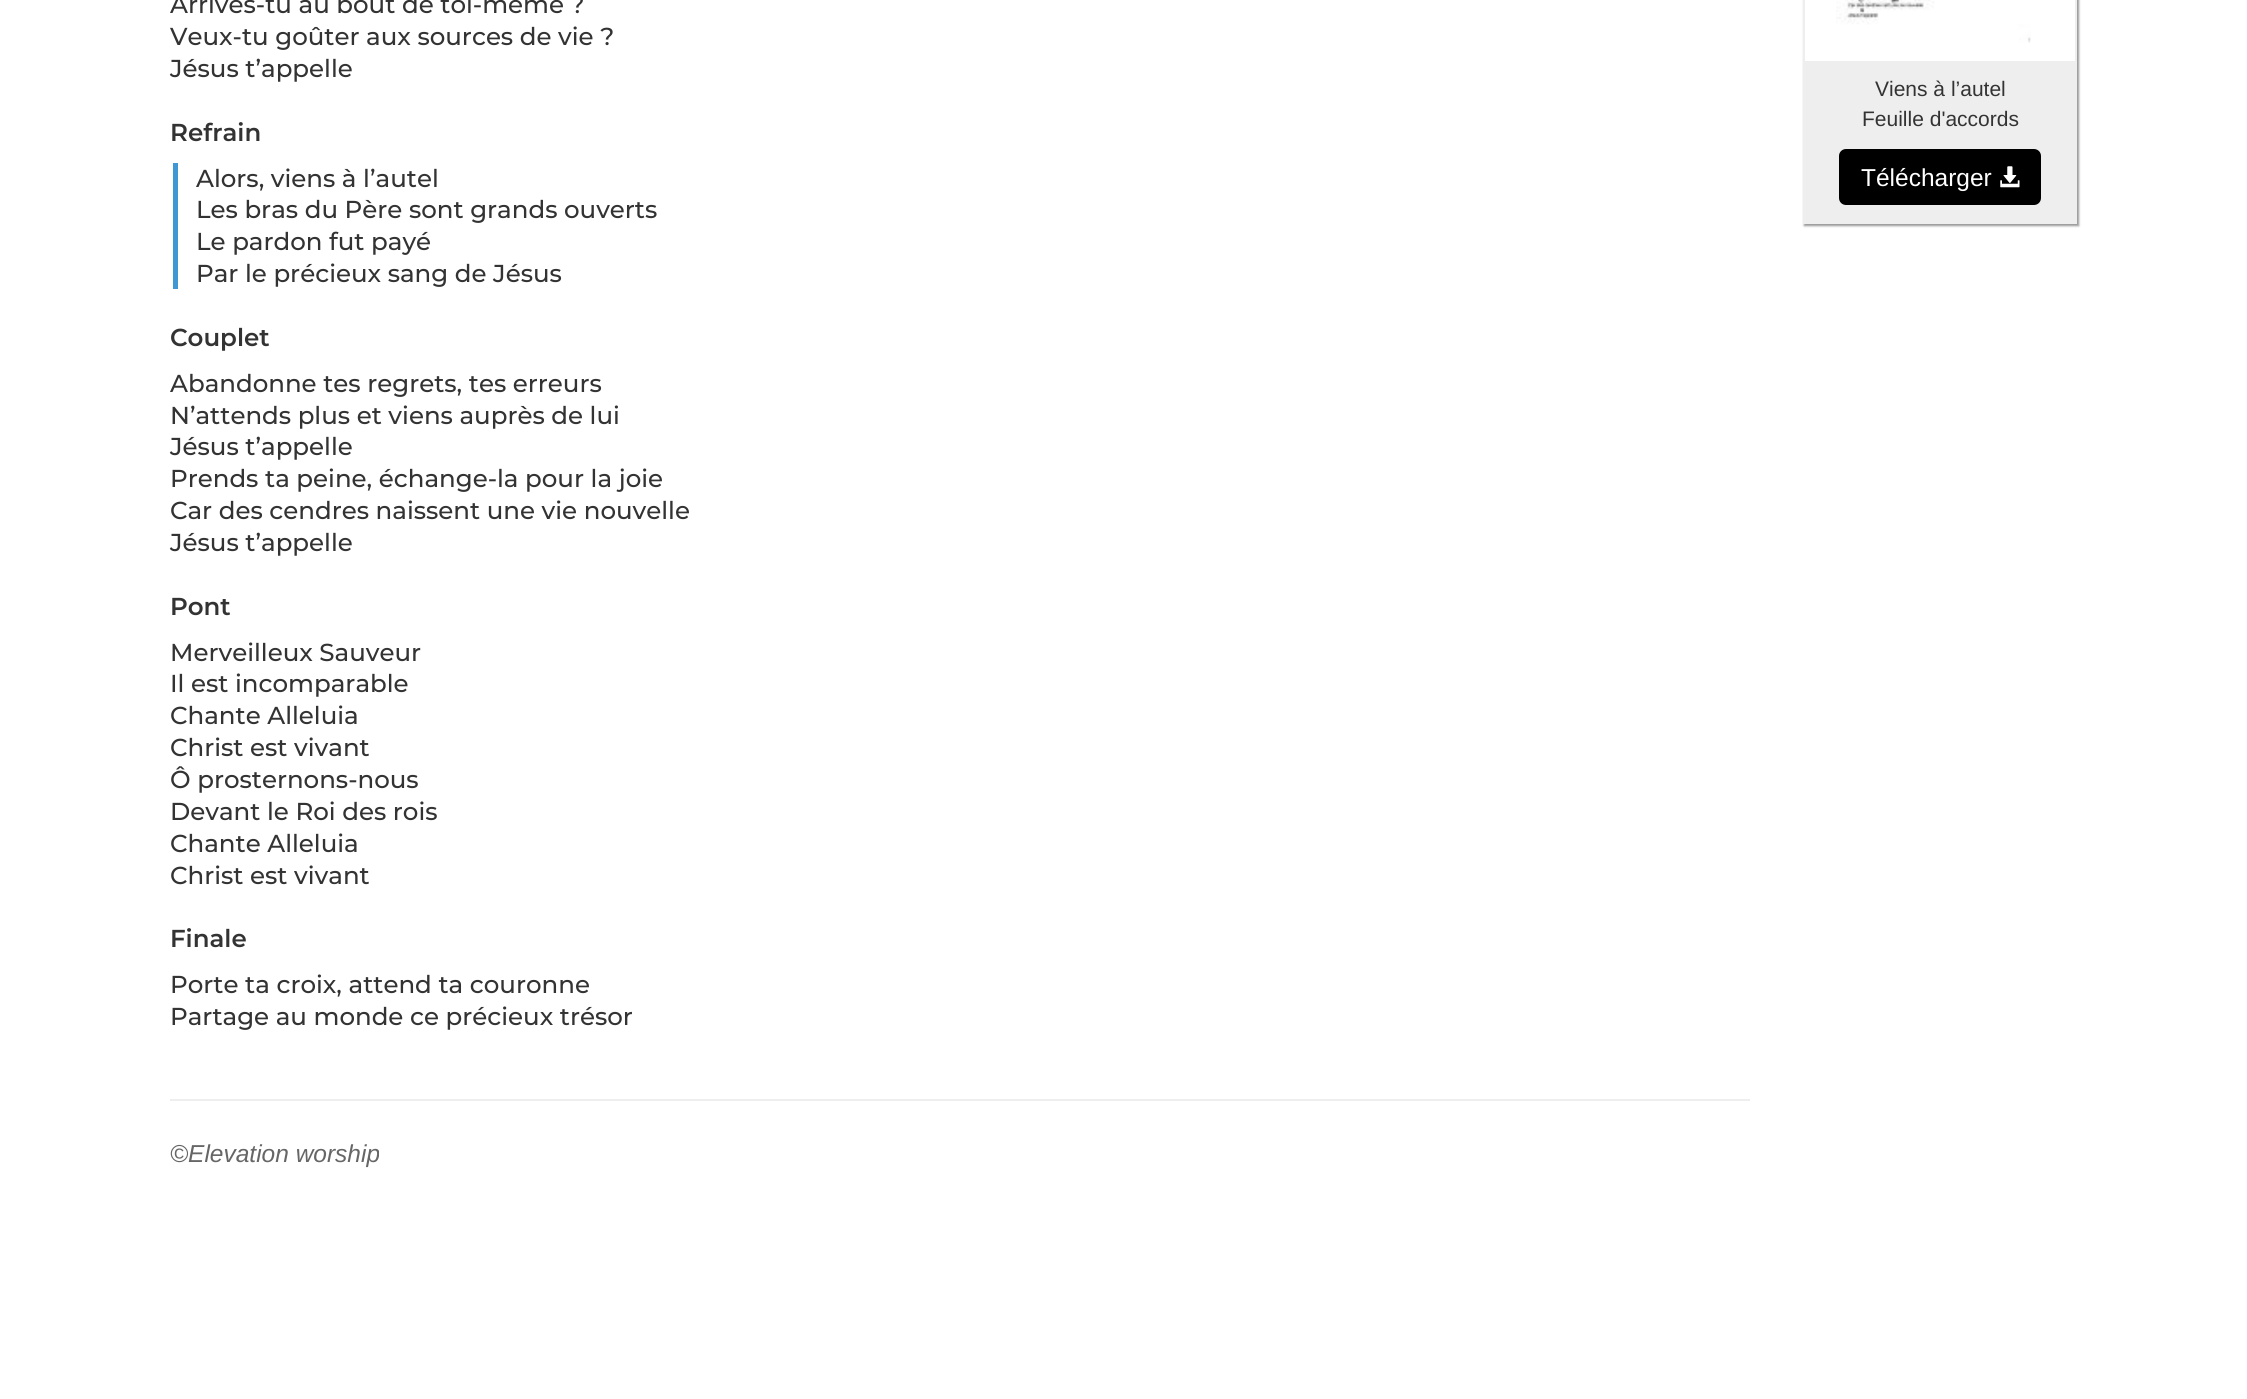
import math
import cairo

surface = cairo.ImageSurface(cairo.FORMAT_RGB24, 2247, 1399)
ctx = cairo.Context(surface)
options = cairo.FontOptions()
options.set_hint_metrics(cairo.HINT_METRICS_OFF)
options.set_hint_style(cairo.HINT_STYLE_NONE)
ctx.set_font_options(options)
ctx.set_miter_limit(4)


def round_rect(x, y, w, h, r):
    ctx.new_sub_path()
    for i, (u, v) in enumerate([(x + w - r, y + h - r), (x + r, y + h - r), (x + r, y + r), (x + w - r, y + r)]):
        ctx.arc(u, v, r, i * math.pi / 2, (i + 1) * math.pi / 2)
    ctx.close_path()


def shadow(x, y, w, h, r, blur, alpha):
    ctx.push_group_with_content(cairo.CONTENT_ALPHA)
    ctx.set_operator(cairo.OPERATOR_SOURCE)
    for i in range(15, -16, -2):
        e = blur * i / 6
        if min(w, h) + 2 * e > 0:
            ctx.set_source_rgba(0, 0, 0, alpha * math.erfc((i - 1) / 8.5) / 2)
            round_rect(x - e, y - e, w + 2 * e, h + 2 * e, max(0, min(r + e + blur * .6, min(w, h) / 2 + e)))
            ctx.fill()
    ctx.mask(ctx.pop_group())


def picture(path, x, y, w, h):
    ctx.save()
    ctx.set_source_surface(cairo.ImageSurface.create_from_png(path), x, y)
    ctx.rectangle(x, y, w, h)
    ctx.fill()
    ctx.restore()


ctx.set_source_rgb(1, 1, 1)
ctx.paint()
ctx.select_font_face("Montserrat Medium")
ctx.set_font_size(24.5)
ctx.set_source_rgb(0.2, 0.2, 0.2)
ctx.move_to(170, 13)
ctx.show_text("Arrives-tu au bout de toi-même ?")
ctx.move_to(170, 45)
ctx.show_text("Veux-tu goûter aux sources de vie ?")
ctx.move_to(170, 77)
ctx.show_text("Jésus t’appelle")
ctx.select_font_face("Montserrat SemiBold")
ctx.move_to(170, 141)
ctx.show_text("Refrain")
ctx.set_source_rgb(0.247, 0.592, 0.827)
ctx.rectangle(173, 163, 5, 126)
ctx.fill()
ctx.select_font_face("Montserrat Medium")
ctx.set_source_rgb(0.2, 0.2, 0.2)
ctx.move_to(196, 187)
ctx.show_text("Alors, viens à l’autel")
ctx.move_to(196, 218)
ctx.show_text("Les bras du Père sont grands ouverts")
ctx.move_to(196, 250)
ctx.show_text("Le pardon fut payé")
ctx.move_to(196, 282)
ctx.show_text("Par le précieux sang de Jésus")
ctx.select_font_face("Montserrat SemiBold")
ctx.move_to(170, 346)
ctx.show_text("Couplet")
ctx.select_font_face("Montserrat Medium")
ctx.move_to(170, 392)
ctx.show_text("Abandonne tes regrets, tes erreurs")
ctx.move_to(170, 424)
ctx.show_text("N’attends plus et viens auprès de lui")
ctx.move_to(170, 455)
ctx.show_text("Jésus t’appelle")
ctx.move_to(170, 487)
ctx.show_text("Prends ta peine, échange-la pour la joie")
ctx.move_to(170, 519)
ctx.show_text("Car des cendres naissent une vie nouvelle")
ctx.move_to(170, 551)
ctx.show_text("Jésus t’appelle")
ctx.select_font_face("Montserrat SemiBold")
ctx.move_to(170, 615)
ctx.show_text("Pont")
ctx.select_font_face("Montserrat Medium")
ctx.move_to(170, 661)
ctx.show_text("Merveilleux Sauveur")
ctx.move_to(170, 692)
ctx.show_text("Il est incomparable")
ctx.move_to(170, 724)
ctx.show_text("Chante Alleluia")
ctx.move_to(170, 756)
ctx.show_text("Christ est vivant")
ctx.move_to(170, 788)
ctx.show_text("Ô prosternons-nous")
ctx.move_to(170, 820)
ctx.show_text("Devant le Roi des rois")
ctx.move_to(170, 852)
ctx.show_text("Chante Alleluia")
ctx.move_to(170, 884)
ctx.show_text("Christ est vivant")
ctx.select_font_face("Montserrat SemiBold")
ctx.move_to(170, 947)
ctx.show_text("Finale")
ctx.select_font_face("Montserrat Medium")
ctx.move_to(170, 993)
ctx.show_text("Porte ta croix, attend ta couronne")
ctx.move_to(170, 1025)
ctx.show_text("Partage au monde ce précieux trésor")
ctx.set_source_rgb(0.933, 0.933, 0.933)
ctx.rectangle(170, 1099, 1580, 2)
ctx.fill()
ctx.select_font_face("Liberation Sans", cairo.FONT_SLANT_ITALIC)
ctx.set_source_rgb(0.4, 0.4, 0.4)
ctx.move_to(170, 1162)
ctx.show_text("©Elevation worship")
ctx.save()
ctx.set_fill_rule(cairo.FILL_RULE_EVEN_ODD)
ctx.new_path()
ctx.move_to(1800, 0)
ctx.line_to(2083, 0)
ctx.line_to(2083, 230)
ctx.line_to(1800, 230)
ctx.close_path()
ctx.move_to(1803, -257)
ctx.line_to(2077, -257)
ctx.line_to(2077, 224)
ctx.line_to(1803, 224)
ctx.close_path()
ctx.clip()
ctx.set_source_rgb(0.6, 0.6, 0.6)
shadow(1804, -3, 275, 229, 0, 1, 1)
ctx.restore()
ctx.rectangle(1804, -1, 272, 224)
ctx.set_source_rgb(0.933, 0.933, 0.933)
ctx.stroke()
picture("img1.png", 1836, 0, 195, 43)
ctx.rectangle(1805, 61, 270, 161)
ctx.fill()
ctx.select_font_face("Liberation Sans")
ctx.set_font_size(21)
ctx.set_source_rgb(0.2, 0.2, 0.2)
ctx.move_to(1875, 96)
ctx.show_text("Viens à l’autel")
ctx.move_to(1862, 126)
ctx.show_text("Feuille d'accords")
ctx.set_source_rgb(0, 0, 0)
round_rect(1839, 149, 202, 56, 7)
ctx.fill()
ctx.set_font_size(24.5)
ctx.set_source_rgb(1, 1, 1)
ctx.move_to(1861, 186)
ctx.show_text("Télécharger")
picture("img2.png", 2000, 166, 20, 22)
surface.write_to_png("page.png")
